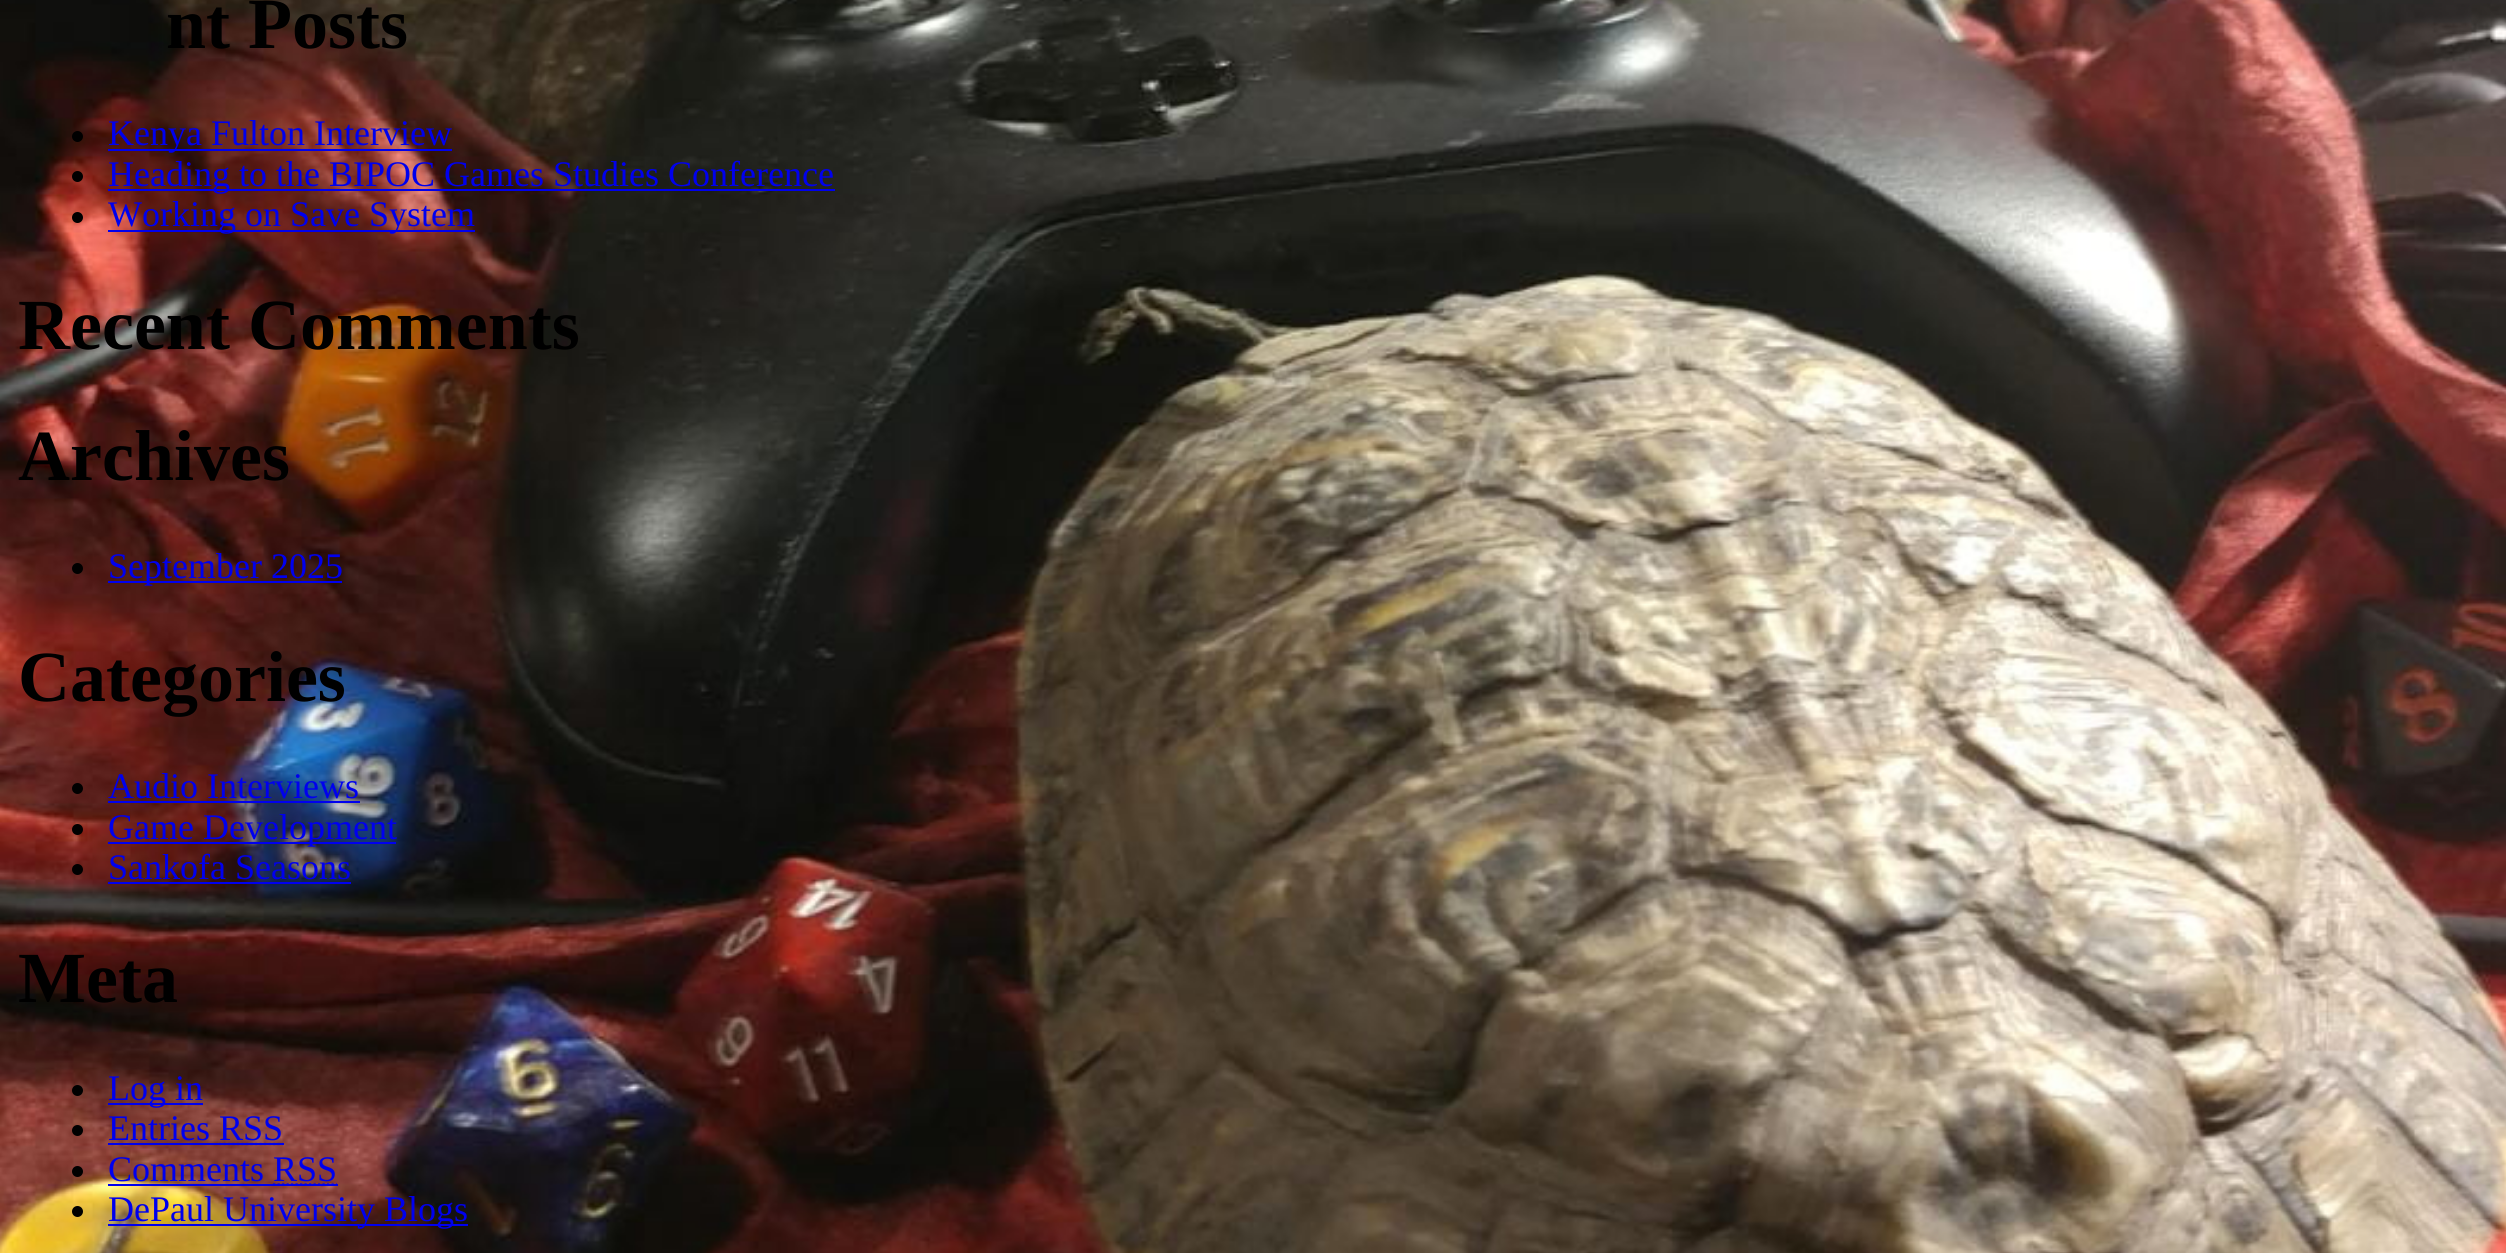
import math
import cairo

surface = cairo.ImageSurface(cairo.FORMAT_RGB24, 2506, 1253)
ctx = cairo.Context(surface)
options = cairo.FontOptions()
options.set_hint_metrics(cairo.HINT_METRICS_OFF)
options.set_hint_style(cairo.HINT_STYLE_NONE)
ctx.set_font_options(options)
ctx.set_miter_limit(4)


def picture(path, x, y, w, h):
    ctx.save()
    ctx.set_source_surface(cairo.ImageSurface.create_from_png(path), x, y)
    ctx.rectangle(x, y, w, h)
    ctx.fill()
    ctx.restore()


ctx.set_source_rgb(1, 1, 1)
ctx.paint()
picture("img1.png", 0, 0, 2506, 1253)
ctx.select_font_face("Liberation Serif", cairo.FONT_SLANT_NORMAL, cairo.FONT_WEIGHT_BOLD)
ctx.set_font_size(72)
ctx.set_source_rgb(0, 0, 0)
ctx.move_to(166, 48)
ctx.show_text("nt Posts")
ctx.new_path()
ctx.arc(77.5, 136.5, 5.5, 0, 2 * math.pi)
ctx.fill()
ctx.set_source_rgb(0, 0, 0.933)
ctx.rectangle(108, 149, 344, 2)
ctx.fill()
ctx.select_font_face("Liberation Serif")
ctx.set_font_size(36)
ctx.move_to(108, 145)
ctx.show_text("Kenya Fulton Interview")
ctx.set_source_rgb(0, 0, 0)
ctx.new_path()
ctx.arc(77.5, 176.5, 5.5, 0, 2 * math.pi)
ctx.fill()
ctx.set_source_rgb(0, 0, 0.933)
ctx.rectangle(108, 189, 727, 2)
ctx.fill()
ctx.move_to(108, 186)
ctx.show_text("Heading to the BIPOC Games Studies Conference")
ctx.set_source_rgb(0, 0, 0)
ctx.new_path()
ctx.arc(77.5, 217.5, 5.5, 0, 2 * math.pi)
ctx.fill()
ctx.set_source_rgb(0, 0, 0.933)
ctx.rectangle(108, 230, 367, 2)
ctx.fill()
ctx.move_to(108, 226)
ctx.show_text("Working on Save System")
ctx.select_font_face("Liberation Serif", cairo.FONT_SLANT_NORMAL, cairo.FONT_WEIGHT_BOLD)
ctx.set_font_size(72)
ctx.set_source_rgb(0, 0, 0)
ctx.move_to(18, 349)
ctx.show_text("Recent Comments")
ctx.move_to(18, 480)
ctx.show_text("Archives")
ctx.new_path()
ctx.arc(77.5, 568.5, 5.5, 0, 2 * math.pi)
ctx.fill()
ctx.set_source_rgb(0, 0, 0.933)
ctx.rectangle(108, 581, 234, 2)
ctx.fill()
ctx.select_font_face("Liberation Serif")
ctx.set_font_size(36)
ctx.move_to(108, 578)
ctx.show_text("September 2025")
ctx.select_font_face("Liberation Serif", cairo.FONT_SLANT_NORMAL, cairo.FONT_WEIGHT_BOLD)
ctx.set_font_size(72)
ctx.set_source_rgb(0, 0, 0)
ctx.move_to(18, 701)
ctx.show_text("Categories")
ctx.new_path()
ctx.arc(77.5, 788.5, 5.5, 0, 2 * math.pi)
ctx.fill()
ctx.select_font_face("Liberation Serif")
ctx.set_font_size(36)
ctx.set_source_rgb(0, 0, 0.933)
ctx.move_to(108, 798)
ctx.show_text("Audio Interviews")
ctx.rectangle(108, 801, 252, 2)
ctx.fill()
ctx.set_source_rgb(0, 0, 0)
ctx.arc(77.5, 829.5, 5.5, 0, 2 * math.pi)
ctx.fill()
ctx.set_source_rgb(0, 0, 0.933)
ctx.rectangle(108, 842, 288, 2)
ctx.fill()
ctx.move_to(108, 839)
ctx.show_text("Game Development")
ctx.set_source_rgb(0, 0, 0)
ctx.new_path()
ctx.arc(77.5, 869.5, 5.5, 0, 2 * math.pi)
ctx.fill()
ctx.set_source_rgb(0, 0, 0.933)
ctx.move_to(108, 879)
ctx.show_text("Sankofa Seasons")
ctx.rectangle(108, 882, 243, 2)
ctx.fill()
ctx.select_font_face("Liberation Serif", cairo.FONT_SLANT_NORMAL, cairo.FONT_WEIGHT_BOLD)
ctx.set_font_size(72)
ctx.set_source_rgb(0, 0, 0)
ctx.move_to(18, 1002)
ctx.show_text("Meta")
ctx.new_path()
ctx.arc(77.5, 1090.5, 5.5, 0, 2 * math.pi)
ctx.fill()
ctx.set_source_rgb(0, 0, 0.933)
ctx.rectangle(108, 1103, 95, 2)
ctx.fill()
ctx.select_font_face("Liberation Serif")
ctx.set_font_size(36)
ctx.move_to(108, 1100)
ctx.show_text("Log in")
ctx.set_source_rgb(0, 0, 0)
ctx.new_path()
ctx.arc(77.5, 1130.5, 5.5, 0, 2 * math.pi)
ctx.fill()
ctx.set_source_rgb(0, 0, 0.933)
ctx.move_to(108, 1140)
ctx.show_text("Entries RSS")
ctx.rectangle(108, 1143, 110, 2)
ctx.fill()
ctx.new_path()
ctx.move_to(219, 1144)
ctx.line_to(283, 1144)
ctx.set_line_width(2.2)
ctx.set_dash([2.25, 2.25])
ctx.stroke()
ctx.rectangle(218, 1143, 66, 2)
ctx.fill()
ctx.set_source_rgb(0, 0, 0)
ctx.arc(77.5, 1171.5, 5.5, 0, 2 * math.pi)
ctx.fill()
ctx.set_source_rgb(0, 0, 0.933)
ctx.move_to(108, 1181)
ctx.show_text("Comments RSS")
ctx.rectangle(108, 1184, 164, 2)
ctx.fill()
ctx.new_path()
ctx.move_to(273, 1184.5)
ctx.line_to(337, 1184.5)
ctx.stroke()
ctx.rectangle(272, 1184, 66, 2)
ctx.fill()
ctx.set_source_rgb(0, 0, 0)
ctx.arc(77.5, 1211.5, 5.5, 0, 2 * math.pi)
ctx.fill()
ctx.set_source_rgb(0, 0, 0.933)
ctx.rectangle(108, 1224, 360, 2)
ctx.fill()
ctx.move_to(108, 1221)
ctx.show_text("DePaul University Blogs")
surface.write_to_png("page.png")
